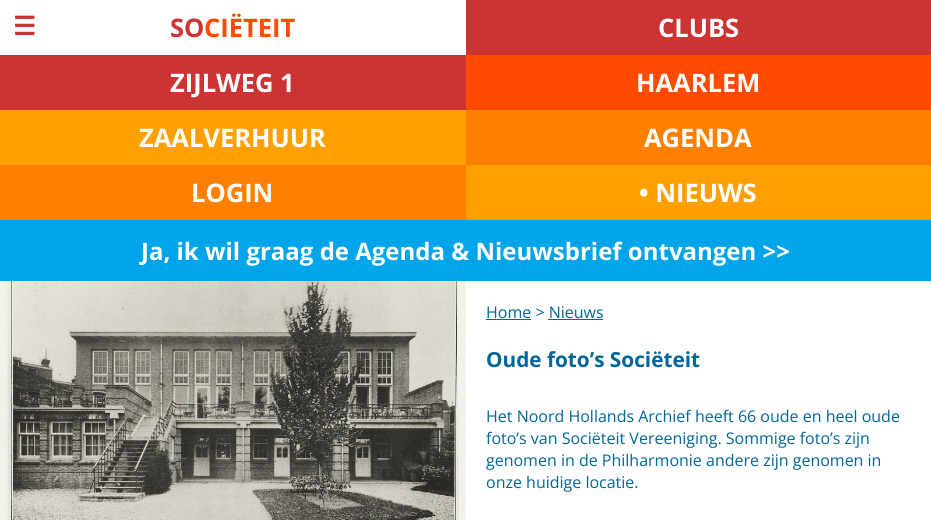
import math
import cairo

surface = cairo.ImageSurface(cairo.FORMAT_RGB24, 931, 520)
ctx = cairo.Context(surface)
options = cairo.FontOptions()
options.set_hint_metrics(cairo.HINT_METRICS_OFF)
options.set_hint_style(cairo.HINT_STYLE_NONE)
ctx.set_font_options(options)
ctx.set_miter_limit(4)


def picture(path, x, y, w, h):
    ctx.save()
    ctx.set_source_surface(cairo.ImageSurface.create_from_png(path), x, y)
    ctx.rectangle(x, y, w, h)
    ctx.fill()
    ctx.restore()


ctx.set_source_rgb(1, 1, 1)
ctx.paint()
ctx.select_font_face("DejaVu Sans", cairo.FONT_SLANT_NORMAL, cairo.FONT_WEIGHT_BOLD)
ctx.set_font_size(25.5)
ctx.set_source_rgb(0.8, 0.2, 0.2)
ctx.move_to(13, 35)
ctx.show_text("☰")
ctx.select_font_face("Open Sans", cairo.FONT_SLANT_NORMAL, cairo.FONT_WEIGHT_BOLD)
ctx.move_to(170, 37)
ctx.show_text("SO")
ctx.set_source_rgb(1, 0.29, 0)
ctx.move_to(204, 37)
ctx.show_text("CIËTEIT")
ctx.set_source_rgb(0.8, 0.2, 0.2)
ctx.rectangle(466, 0, 465, 55)
ctx.fill()
ctx.set_source_rgb(1, 1, 1)
ctx.move_to(658, 37)
ctx.show_text("CLUBS")
ctx.set_source_rgb(0.8, 0.2, 0.2)
ctx.rectangle(0, 55, 466, 55)
ctx.fill()
ctx.set_source_rgb(1, 1, 1)
ctx.move_to(170, 92)
ctx.show_text("ZIJLWEG 1")
ctx.set_source_rgb(1, 0.29, 0)
ctx.rectangle(466, 55, 465, 55)
ctx.fill()
ctx.set_source_rgb(1, 1, 1)
ctx.move_to(636, 92)
ctx.show_text("HAARLEM")
ctx.set_source_rgb(1, 0.624, 0)
ctx.rectangle(0, 110, 466, 55)
ctx.fill()
ctx.set_source_rgb(1, 1, 1)
ctx.move_to(139, 147)
ctx.show_text("ZAALVERHUUR")
ctx.set_source_rgb(1, 0.498, 0)
ctx.rectangle(466, 110, 465, 55)
ctx.fill()
ctx.set_source_rgb(1, 1, 1)
ctx.move_to(644, 147)
ctx.show_text("AGENDA")
ctx.set_source_rgb(1, 0.498, 0)
ctx.rectangle(0, 165, 466, 55)
ctx.fill()
ctx.set_source_rgb(1, 1, 1)
ctx.move_to(191, 202)
ctx.show_text("LOGIN")
ctx.set_source_rgb(1, 0.624, 0)
ctx.rectangle(466, 165, 465, 55)
ctx.fill()
ctx.set_source_rgb(1, 1, 1)
ctx.move_to(639, 202)
ctx.show_text("• NIEUWS")
ctx.set_source_rgb(0, 0.643, 0.91)
ctx.rectangle(0, 220, 931, 61)
ctx.fill()
ctx.set_font_size(24)
ctx.set_source_rgb(1, 1, 1)
ctx.move_to(141, 260)
ctx.show_text("Ja, ik wil graag de Agenda & Nieuwsbrief ontvangen >>")
picture("img1.png", 0, 281, 466, 239)
ctx.select_font_face("Open Sans")
ctx.set_font_size(16)
ctx.set_source_rgb(0, 0.4, 0.6)
ctx.move_to(486, 318)
ctx.show_text("Home > Nieuws")
ctx.rectangle(486, 319, 45, 1)
ctx.fill()
ctx.rectangle(548, 319, 55, 1)
ctx.fill()
ctx.select_font_face("Open Sans", cairo.FONT_SLANT_NORMAL, cairo.FONT_WEIGHT_BOLD)
ctx.set_font_size(20.75)
ctx.move_to(486, 367)
ctx.show_text("Oude foto’s Sociëteit")
ctx.select_font_face("Open Sans")
ctx.set_font_size(16)
ctx.move_to(486, 422)
ctx.show_text("Het Noord Hollands Archief heeft 66 oude en heel oude")
ctx.move_to(486, 444)
ctx.show_text("foto’s van Sociëteit Vereeniging. Sommige foto’s zijn")
ctx.move_to(486, 466)
ctx.show_text("genomen in de Philharmonie andere zijn genomen in")
ctx.move_to(486, 488)
ctx.show_text("onze huidige locatie.")
surface.write_to_png("page.png")
